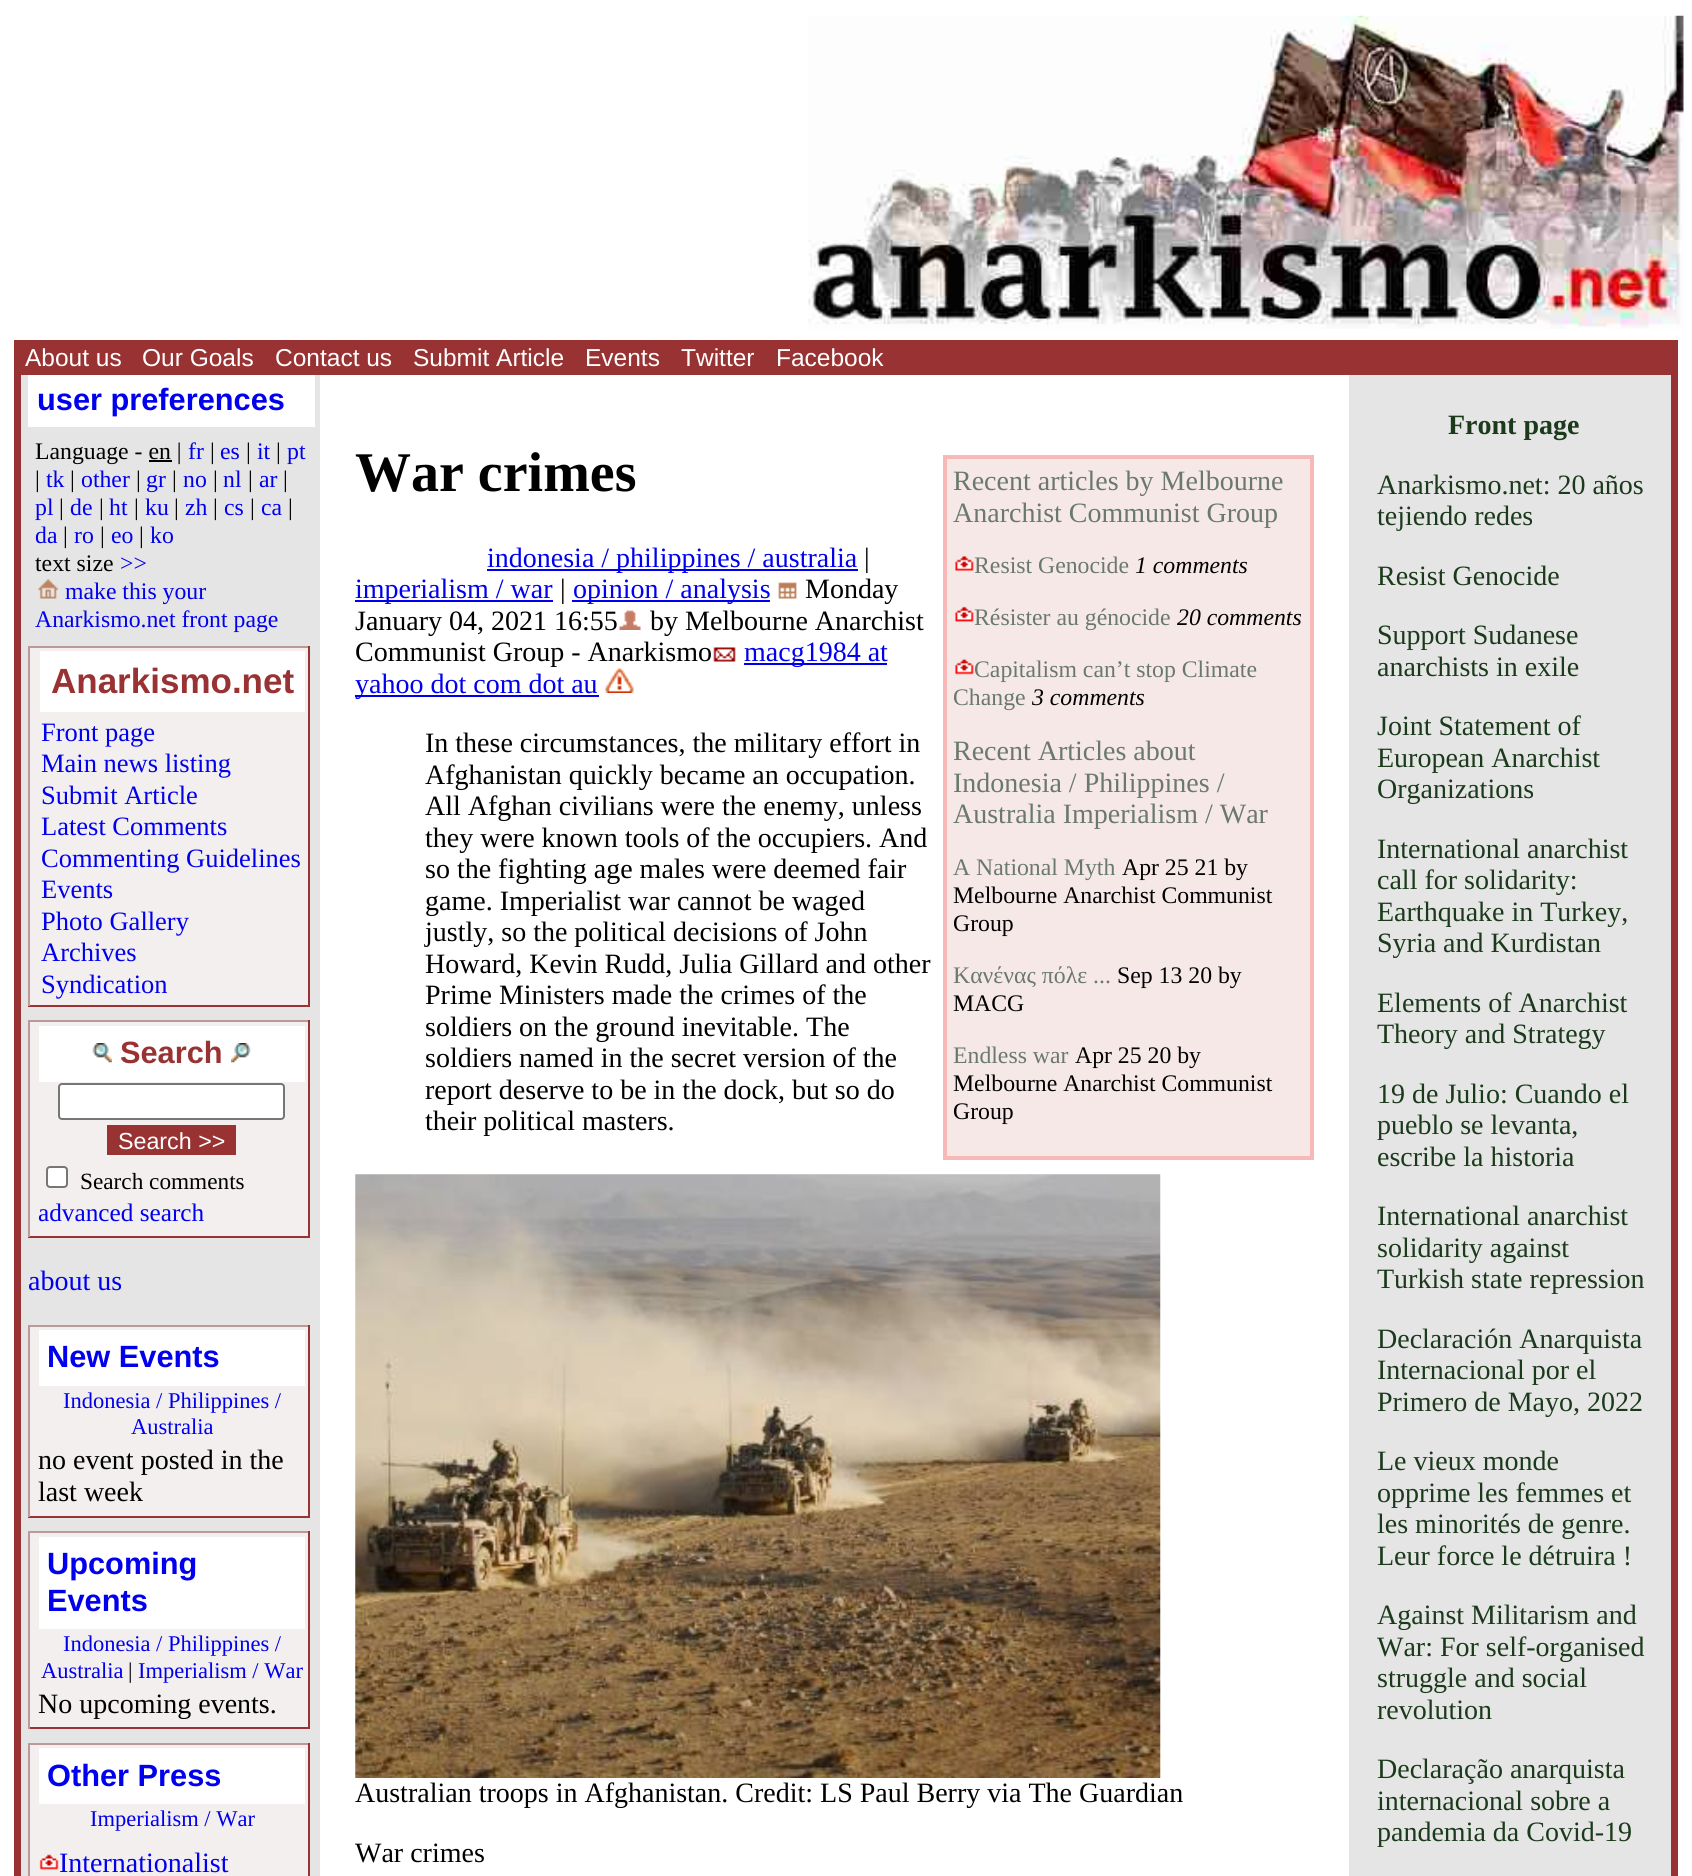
import math
import cairo

surface = cairo.ImageSurface(cairo.FORMAT_RGB24, 1692, 1876)
ctx = cairo.Context(surface)
options = cairo.FontOptions()
options.set_hint_metrics(cairo.HINT_METRICS_OFF)
options.set_hint_style(cairo.HINT_STYLE_NONE)
ctx.set_font_options(options)
ctx.set_miter_limit(4)


def round_rect(x, y, w, h, r):
    ctx.new_sub_path()
    for i, (u, v) in enumerate([(x + w - r, y + h - r), (x + r, y + h - r), (x + r, y + r), (x + w - r, y + r)]):
        ctx.arc(u, v, r, i * math.pi / 2, (i + 1) * math.pi / 2)
    ctx.close_path()


def picture(path, x, y, w, h):
    ctx.save()
    ctx.set_source_surface(cairo.ImageSurface.create_from_png(path), x, y)
    ctx.rectangle(x, y, w, h)
    ctx.fill()
    ctx.restore()


ctx.set_source_rgb(1, 1, 1)
ctx.paint()
picture("img1.png", 808, 15, 876, 314)
ctx.set_source_rgb(0.6, 0.2, 0.2)
ctx.rectangle(14, 340, 1664, 35)
ctx.fill()
ctx.select_font_face("Liberation Sans")
ctx.set_font_size(24.5)
ctx.set_source_rgb(1, 1, 1)
ctx.move_to(25, 366)
ctx.show_text("About us")
ctx.move_to(142, 366)
ctx.show_text("Our Goals")
ctx.move_to(275, 366)
ctx.show_text("Contact us")
ctx.move_to(413, 366)
ctx.show_text("Submit Article")
ctx.move_to(585, 366)
ctx.show_text("Events")
ctx.move_to(681, 366)
ctx.show_text("Twitter")
ctx.move_to(776, 366)
ctx.show_text("Facebook")
ctx.set_source_rgb(0.898, 0.898, 0.898)
ctx.rectangle(21, 375, 299, 1501)
ctx.fill()
ctx.set_source_rgb(0.6, 0.2, 0.2)
ctx.rectangle(14, 375, 7, 1501)
ctx.fill()
ctx.set_source_rgb(1, 1, 1)
ctx.rectangle(28, 375, 287, 52)
ctx.fill()
ctx.select_font_face("Liberation Sans", cairo.FONT_SLANT_NORMAL, cairo.FONT_WEIGHT_BOLD)
ctx.set_font_size(30.75)
ctx.set_source_rgb(0, 0, 0.933)
ctx.move_to(37, 410)
ctx.show_text("user preferences")
ctx.select_font_face("Liberation Serif")
ctx.set_font_size(23.75)
ctx.set_source_rgb(0, 0, 0)
ctx.move_to(35, 459)
ctx.show_text("Language - en |")
ctx.set_source_rgb(0, 0, 0.933)
ctx.move_to(188, 459)
ctx.show_text("fr")
ctx.set_source_rgb(0, 0, 0)
ctx.move_to(210, 459)
ctx.show_text("|")
ctx.set_source_rgb(0, 0, 0.933)
ctx.move_to(220, 459)
ctx.show_text("es")
ctx.set_source_rgb(0, 0, 0)
ctx.move_to(246, 459)
ctx.show_text("|")
ctx.set_source_rgb(0, 0, 0.933)
ctx.move_to(257, 459)
ctx.show_text("it")
ctx.set_source_rgb(0, 0, 0)
ctx.move_to(276, 459)
ctx.show_text("|")
ctx.set_source_rgb(0, 0, 0.933)
ctx.move_to(287, 459)
ctx.show_text("pt")
ctx.set_source_rgb(0, 0, 0)
ctx.rectangle(149, 460, 23, 2)
ctx.fill()
ctx.move_to(35, 487)
ctx.show_text("|")
ctx.set_source_rgb(0, 0, 0.933)
ctx.move_to(46, 487)
ctx.show_text("tk")
ctx.set_source_rgb(0, 0, 0)
ctx.move_to(70, 487)
ctx.show_text("|")
ctx.set_source_rgb(0, 0, 0.933)
ctx.move_to(81, 487)
ctx.show_text("other")
ctx.set_source_rgb(0, 0, 0)
ctx.move_to(136, 487)
ctx.show_text("|")
ctx.set_source_rgb(0, 0, 0.933)
ctx.move_to(146, 487)
ctx.show_text("gr")
ctx.set_source_rgb(0, 0, 0)
ctx.move_to(172, 487)
ctx.show_text("|")
ctx.set_source_rgb(0, 0, 0.933)
ctx.move_to(183, 487)
ctx.show_text("no")
ctx.set_source_rgb(0, 0, 0)
ctx.move_to(213, 487)
ctx.show_text("|")
ctx.set_source_rgb(0, 0, 0.933)
ctx.move_to(223, 487)
ctx.show_text("nl")
ctx.set_source_rgb(0, 0, 0)
ctx.move_to(248, 487)
ctx.show_text("|")
ctx.set_source_rgb(0, 0, 0.933)
ctx.move_to(259, 487)
ctx.show_text("ar")
ctx.set_source_rgb(0, 0, 0)
ctx.move_to(283, 487)
ctx.show_text("|")
ctx.set_source_rgb(0, 0, 0.933)
ctx.move_to(35, 515)
ctx.show_text("pl")
ctx.set_source_rgb(0, 0, 0)
ctx.move_to(59, 515)
ctx.show_text("|")
ctx.set_source_rgb(0, 0, 0.933)
ctx.move_to(70, 515)
ctx.show_text("de")
ctx.set_source_rgb(0, 0, 0)
ctx.move_to(99, 515)
ctx.show_text("|")
ctx.set_source_rgb(0, 0, 0.933)
ctx.move_to(109, 515)
ctx.show_text("ht")
ctx.set_source_rgb(0, 0, 0)
ctx.move_to(134, 515)
ctx.show_text("|")
ctx.set_source_rgb(0, 0, 0.933)
ctx.move_to(145, 515)
ctx.show_text("ku")
ctx.set_source_rgb(0, 0, 0)
ctx.move_to(174, 515)
ctx.show_text("|")
ctx.set_source_rgb(0, 0, 0.933)
ctx.move_to(185, 515)
ctx.show_text("zh")
ctx.set_source_rgb(0, 0, 0)
ctx.move_to(213, 515)
ctx.show_text("|")
ctx.set_source_rgb(0, 0, 0.933)
ctx.move_to(224, 515)
ctx.show_text("cs")
ctx.set_source_rgb(0, 0, 0)
ctx.move_to(250, 515)
ctx.show_text("|")
ctx.set_source_rgb(0, 0, 0.933)
ctx.move_to(261, 515)
ctx.show_text("ca")
ctx.set_source_rgb(0, 0, 0)
ctx.move_to(288, 515)
ctx.show_text("|")
ctx.set_source_rgb(0, 0, 0.933)
ctx.move_to(35, 543)
ctx.show_text("da")
ctx.set_source_rgb(0, 0, 0)
ctx.move_to(63, 543)
ctx.show_text("|")
ctx.set_source_rgb(0, 0, 0.933)
ctx.move_to(74, 543)
ctx.show_text("ro")
ctx.set_source_rgb(0, 0, 0)
ctx.move_to(100, 543)
ctx.show_text("|")
ctx.set_source_rgb(0, 0, 0.933)
ctx.move_to(111, 543)
ctx.show_text("eo")
ctx.set_source_rgb(0, 0, 0)
ctx.move_to(139, 543)
ctx.show_text("|")
ctx.set_source_rgb(0, 0, 0.933)
ctx.move_to(150, 543)
ctx.show_text("ko")
ctx.set_source_rgb(0, 0, 0)
ctx.move_to(35, 571)
ctx.show_text("text size")
ctx.set_source_rgb(0, 0, 0.933)
ctx.move_to(120, 571)
ctx.show_text(">>")
picture("img2.png", 38, 578, 21, 21)
ctx.move_to(65, 599)
ctx.show_text("make this your")
ctx.move_to(35, 627)
ctx.show_text("Anarkismo.net front page")
ctx.set_source_rgb(0.953, 0.937, 0.937)
ctx.rectangle(30, 648, 278, 357)
ctx.fill()
ctx.set_source_rgb(0.733, 0.6, 0.6)
ctx.rectangle(28, 646, 282, 2)
ctx.fill()
ctx.set_source_rgb(0.6, 0.2, 0.2)
ctx.rectangle(308, 646, 2, 360)
ctx.fill()
ctx.rectangle(28, 1005, 282, 2)
ctx.fill()
ctx.set_source_rgb(0.733, 0.6, 0.6)
ctx.rectangle(28, 646, 2, 360)
ctx.fill()
ctx.set_source_rgb(1, 1, 1)
ctx.rectangle(40, 651, 265, 61)
ctx.fill()
ctx.select_font_face("Liberation Sans", cairo.FONT_SLANT_NORMAL, cairo.FONT_WEIGHT_BOLD)
ctx.set_font_size(35)
ctx.set_source_rgb(0.6, 0.2, 0.2)
ctx.move_to(51, 693)
ctx.show_text("Anarkismo.net")
ctx.select_font_face("Liberation Serif")
ctx.set_font_size(26.5)
ctx.set_source_rgb(0, 0, 0.933)
ctx.move_to(41, 741)
ctx.show_text("Front page")
ctx.move_to(41, 772)
ctx.show_text("Main news listing")
ctx.move_to(41, 804)
ctx.show_text("Submit Article")
ctx.move_to(41, 835)
ctx.show_text("Latest Comments")
ctx.move_to(41, 867)
ctx.show_text("Commenting Guidelines")
ctx.move_to(41, 898)
ctx.show_text("Events")
ctx.move_to(41, 930)
ctx.show_text("Photo Gallery")
ctx.move_to(41, 961)
ctx.show_text("Archives")
ctx.move_to(41, 993)
ctx.show_text("Syndication")
ctx.set_source_rgb(0.953, 0.937, 0.937)
ctx.rectangle(30, 1022, 278, 214)
ctx.fill()
ctx.set_source_rgb(0.733, 0.6, 0.6)
ctx.rectangle(28, 1020, 282, 2)
ctx.fill()
ctx.set_source_rgb(0.6, 0.2, 0.2)
ctx.rectangle(308, 1020, 2, 217)
ctx.fill()
ctx.rectangle(28, 1236, 282, 2)
ctx.fill()
ctx.set_source_rgb(0.733, 0.6, 0.6)
ctx.rectangle(28, 1020, 2, 217)
ctx.fill()
ctx.set_source_rgb(1, 1, 1)
ctx.rectangle(39, 1026, 266, 56)
ctx.fill()
picture("img3.png", 92, 1043, 20, 20)
ctx.select_font_face("Liberation Sans", cairo.FONT_SLANT_NORMAL, cairo.FONT_WEIGHT_BOLD)
ctx.set_font_size(30.75)
ctx.set_source_rgb(0.6, 0.2, 0.2)
ctx.move_to(120, 1063)
ctx.show_text("Search")
picture("img4.png", 231, 1043, 20, 20)
ctx.set_source_rgb(1, 1, 1)
round_rect(59, 1084, 225, 35, 3)
ctx.fill_preserve()
ctx.set_source_rgb(0.463, 0.463, 0.463)
ctx.stroke()
ctx.set_source_rgb(0.6, 0.2, 0.2)
ctx.rectangle(107, 1125, 129, 30)
ctx.fill()
ctx.select_font_face("Liberation Sans")
ctx.set_font_size(23.25)
ctx.set_source_rgb(1, 1, 1)
ctx.move_to(118, 1149)
ctx.show_text("Search >>")
round_rect(47, 1167, 20, 20, 3)
ctx.fill_preserve()
ctx.set_source_rgb(0.463, 0.463, 0.463)
ctx.stroke()
ctx.select_font_face("Liberation Serif")
ctx.set_source_rgb(0, 0, 0)
ctx.move_to(80, 1189)
ctx.show_text("Search comments")
ctx.set_font_size(25.25)
ctx.set_source_rgb(0, 0, 0.933)
ctx.move_to(38, 1221)
ctx.show_text("advanced search")
ctx.set_font_size(28)
ctx.move_to(28, 1290)
ctx.show_text("about us")
ctx.set_source_rgb(0.953, 0.937, 0.937)
ctx.rectangle(30, 1327, 278, 189)
ctx.fill()
ctx.set_source_rgb(0.733, 0.6, 0.6)
ctx.rectangle(28, 1325, 282, 2)
ctx.fill()
ctx.set_source_rgb(0.6, 0.2, 0.2)
ctx.rectangle(308, 1325, 2, 192)
ctx.fill()
ctx.rectangle(28, 1516, 282, 2)
ctx.fill()
ctx.set_source_rgb(0.733, 0.6, 0.6)
ctx.rectangle(28, 1325, 2, 192)
ctx.fill()
ctx.set_source_rgb(1, 1, 1)
ctx.rectangle(39, 1330, 266, 56)
ctx.fill()
ctx.select_font_face("Liberation Sans", cairo.FONT_SLANT_NORMAL, cairo.FONT_WEIGHT_BOLD)
ctx.set_font_size(30.75)
ctx.set_source_rgb(0, 0, 0.933)
ctx.move_to(47, 1367)
ctx.show_text("New Events")
ctx.select_font_face("Liberation Serif")
ctx.set_font_size(22.5)
ctx.move_to(63, 1408)
ctx.show_text("Indonesia / Philippines /")
ctx.move_to(131, 1434)
ctx.show_text("Australia")
ctx.set_font_size(28)
ctx.set_source_rgb(0, 0, 0)
ctx.move_to(38, 1469)
ctx.show_text("no event posted in the")
ctx.move_to(38, 1501)
ctx.show_text("last week")
ctx.set_source_rgb(0.953, 0.937, 0.937)
ctx.rectangle(30, 1533, 278, 194)
ctx.fill()
ctx.set_source_rgb(0.733, 0.6, 0.6)
ctx.rectangle(28, 1531, 282, 2)
ctx.fill()
ctx.set_source_rgb(0.6, 0.2, 0.2)
ctx.rectangle(308, 1531, 2, 198)
ctx.fill()
ctx.rectangle(28, 1727, 282, 2)
ctx.fill()
ctx.set_source_rgb(0.733, 0.6, 0.6)
ctx.rectangle(28, 1531, 2, 198)
ctx.fill()
ctx.set_source_rgb(1, 1, 1)
ctx.rectangle(39, 1537, 266, 92)
ctx.fill()
ctx.select_font_face("Liberation Sans", cairo.FONT_SLANT_NORMAL, cairo.FONT_WEIGHT_BOLD)
ctx.set_font_size(30.75)
ctx.set_source_rgb(0, 0, 0.933)
ctx.move_to(47, 1574)
ctx.show_text("Upcoming")
ctx.move_to(47, 1611)
ctx.show_text("Events")
ctx.select_font_face("Liberation Serif")
ctx.set_font_size(22.5)
ctx.move_to(63, 1651)
ctx.show_text("Indonesia / Philippines /")
ctx.move_to(41, 1678)
ctx.show_text("Australia")
ctx.set_source_rgb(0, 0, 0)
ctx.move_to(128, 1678)
ctx.show_text("|")
ctx.set_source_rgb(0, 0, 0.933)
ctx.move_to(138, 1678)
ctx.show_text("Imperialism / War")
ctx.set_font_size(28)
ctx.set_source_rgb(0, 0, 0)
ctx.move_to(38, 1713)
ctx.show_text("No upcoming events.")
ctx.set_source_rgb(0.953, 0.937, 0.937)
ctx.rectangle(30, 1745, 278, 131)
ctx.fill()
ctx.set_source_rgb(0.733, 0.6, 0.6)
ctx.rectangle(28, 1743, 282, 2)
ctx.fill()
ctx.set_source_rgb(0.6, 0.2, 0.2)
ctx.rectangle(308, 1743, 2, 133)
ctx.fill()
ctx.set_source_rgb(0.733, 0.6, 0.6)
ctx.rectangle(28, 1743, 2, 133)
ctx.fill()
ctx.set_source_rgb(1, 1, 1)
ctx.rectangle(39, 1748, 266, 56)
ctx.fill()
ctx.select_font_face("Liberation Sans", cairo.FONT_SLANT_NORMAL, cairo.FONT_WEIGHT_BOLD)
ctx.set_font_size(30.75)
ctx.set_source_rgb(0, 0, 0.933)
ctx.move_to(47, 1786)
ctx.show_text("Other Press")
ctx.select_font_face("Liberation Serif")
ctx.set_font_size(22.5)
ctx.move_to(90, 1826)
ctx.show_text("Imperialism / War")
picture("img5.png", 39, 1854, 20, 16)
ctx.set_font_size(28)
ctx.move_to(59, 1872)
ctx.show_text("Internationalist")
ctx.select_font_face("Liberation Serif", cairo.FONT_SLANT_NORMAL, cairo.FONT_WEIGHT_BOLD)
ctx.set_font_size(56)
ctx.set_source_rgb(0, 0, 0)
ctx.move_to(355, 491)
ctx.show_text("War crimes")
ctx.set_source_rgb(0, 0, 0.933)
ctx.rectangle(487, 569, 371, 2)
ctx.fill()
ctx.select_font_face("Liberation Serif")
ctx.set_font_size(28)
ctx.move_to(487, 567)
ctx.show_text("indonesia / philippines / australia")
ctx.set_source_rgb(0, 0, 0)
ctx.move_to(864, 567)
ctx.show_text("|")
ctx.set_source_rgb(0, 0, 0.933)
ctx.rectangle(355, 600, 198, 2)
ctx.fill()
ctx.move_to(355, 598)
ctx.show_text("imperialism / war")
ctx.set_source_rgb(0, 0, 0)
ctx.move_to(560, 598)
ctx.show_text("|")
ctx.set_source_rgb(0, 0, 0.933)
ctx.rectangle(572, 600, 198, 2)
ctx.fill()
ctx.move_to(573, 598)
ctx.show_text("opinion / analysis")
picture("img6.png", 778, 582, 19, 17)
ctx.set_source_rgb(0, 0, 0)
ctx.move_to(805, 598)
ctx.show_text("Monday")
ctx.move_to(355, 630)
ctx.show_text("January 04, 2021 16:55")
picture("img7.png", 617, 610, 24, 20)
ctx.move_to(650, 630)
ctx.show_text("by Melbourne Anarchist")
ctx.move_to(355, 661)
ctx.show_text("Communist Group - Anarkismo")
picture("img8.png", 713, 647, 23, 15)
ctx.set_source_rgb(0, 0, 0.933)
ctx.rectangle(744, 663, 143, 2)
ctx.fill()
ctx.move_to(744, 661)
ctx.show_text("macg1984 at")
ctx.rectangle(355, 695, 244, 2)
ctx.fill()
ctx.move_to(355, 693)
ctx.show_text("yahoo dot com dot au")
picture("img9.png", 605, 668, 29, 25)
ctx.set_source_rgb(0, 0, 0)
ctx.move_to(425, 752)
ctx.show_text("In these circumstances, the military effort in")
ctx.move_to(425, 784)
ctx.show_text("Afghanistan quickly became an occupation.")
ctx.move_to(425, 815)
ctx.show_text("All Afghan civilians were the enemy, unless")
ctx.move_to(425, 847)
ctx.show_text("they were known tools of the occupiers. And")
ctx.move_to(425, 878)
ctx.show_text("so the fighting age males were deemed fair")
ctx.move_to(425, 910)
ctx.show_text("game. Imperialist war cannot be waged")
ctx.move_to(425, 941)
ctx.show_text("justly, so the political decisions of John")
ctx.move_to(425, 973)
ctx.show_text("Howard, Kevin Rudd, Julia Gillard and other")
ctx.move_to(425, 1004)
ctx.show_text("Prime Ministers made the crimes of the")
ctx.move_to(425, 1036)
ctx.show_text("soldiers on the ground inevitable. The")
ctx.move_to(425, 1067)
ctx.show_text("soldiers named in the secret version of the")
ctx.move_to(425, 1099)
ctx.show_text("report deserve to be in the dock, but so do")
ctx.move_to(425, 1130)
ctx.show_text("their political masters.")
picture("img10.png", 355, 1174, 806, 604)
ctx.move_to(355, 1802)
ctx.show_text("Australian troops in Afghanistan. Credit: LS Paul Berry via The Guardian")
ctx.move_to(355, 1862)
ctx.show_text("War crimes")
ctx.set_source_rgb(0.965, 0.91, 0.91)
ctx.rectangle(945, 457, 367, 701)
ctx.fill_preserve()
ctx.set_source_rgb(0.973, 0.722, 0.722)
ctx.set_line_width(4)
ctx.stroke()
ctx.set_source_rgb(0.412, 0.475, 0.424)
ctx.move_to(953, 490)
ctx.show_text("Recent articles by Melbourne")
ctx.move_to(953, 522)
ctx.show_text("Anarchist Communist Group")
picture("img11.png", 955, 556, 19, 15)
ctx.set_font_size(23.75)
ctx.move_to(974, 573)
ctx.show_text("Resist Genocide")
ctx.select_font_face("Liberation Serif", cairo.FONT_SLANT_ITALIC)
ctx.set_source_rgb(0, 0, 0)
ctx.move_to(1135, 573)
ctx.show_text("1 comments")
picture("img12.png", 955, 606, 19, 16)
ctx.select_font_face("Liberation Serif")
ctx.set_source_rgb(0.412, 0.475, 0.424)
ctx.move_to(974, 625)
ctx.show_text("Résister au génocide")
ctx.select_font_face("Liberation Serif", cairo.FONT_SLANT_ITALIC)
ctx.set_source_rgb(0, 0, 0)
ctx.move_to(1177, 625)
ctx.show_text("20 comments")
picture("img13.png", 955, 659, 19, 16)
ctx.select_font_face("Liberation Serif")
ctx.set_source_rgb(0.412, 0.475, 0.424)
ctx.move_to(974, 677)
ctx.show_text("Capitalism can’t stop Climate")
ctx.move_to(953, 705)
ctx.show_text("Change")
ctx.select_font_face("Liberation Serif", cairo.FONT_SLANT_ITALIC)
ctx.set_source_rgb(0, 0, 0)
ctx.move_to(1032, 705)
ctx.show_text("3 comments")
ctx.select_font_face("Liberation Serif")
ctx.set_font_size(28)
ctx.set_source_rgb(0.412, 0.475, 0.424)
ctx.move_to(953, 760)
ctx.show_text("Recent Articles about")
ctx.move_to(953, 792)
ctx.show_text("Indonesia / Philippines /")
ctx.move_to(953, 823)
ctx.show_text("Australia Imperialism / War")
ctx.set_font_size(23.75)
ctx.move_to(953, 875)
ctx.show_text("A National Myth")
ctx.set_source_rgb(0, 0, 0)
ctx.move_to(1122, 875)
ctx.show_text("Apr 25 21 by")
ctx.move_to(953, 903)
ctx.show_text("Melbourne Anarchist Communist")
ctx.move_to(953, 931)
ctx.show_text("Group")
ctx.set_source_rgb(0.412, 0.475, 0.424)
ctx.move_to(953, 983)
ctx.show_text("Κανένας πόλε ...")
ctx.set_source_rgb(0, 0, 0)
ctx.move_to(1117, 983)
ctx.show_text("Sep 13 20 by")
ctx.move_to(953, 1011)
ctx.show_text("MACG")
ctx.set_source_rgb(0.412, 0.475, 0.424)
ctx.move_to(953, 1063)
ctx.show_text("Endless war")
ctx.set_source_rgb(0, 0, 0)
ctx.move_to(1075, 1063)
ctx.show_text("Apr 25 20 by")
ctx.move_to(953, 1091)
ctx.show_text("Melbourne Anarchist Communist")
ctx.move_to(953, 1119)
ctx.show_text("Group")
ctx.set_source_rgb(0.898, 0.898, 0.898)
ctx.rectangle(1349, 375, 322, 1501)
ctx.fill()
ctx.set_source_rgb(0.6, 0.2, 0.2)
ctx.rectangle(1671, 375, 7, 1501)
ctx.fill()
ctx.select_font_face("Liberation Serif", cairo.FONT_SLANT_NORMAL, cairo.FONT_WEIGHT_BOLD)
ctx.set_font_size(28)
ctx.set_source_rgb(0.106, 0.227, 0.106)
ctx.move_to(1448, 434)
ctx.show_text("Front page")
ctx.select_font_face("Liberation Serif")
ctx.move_to(1377, 494)
ctx.show_text("Anarkismo.net: 20 años")
ctx.move_to(1377, 525)
ctx.show_text("tejiendo redes")
ctx.move_to(1377, 585)
ctx.show_text("Resist Genocide")
ctx.move_to(1377, 644)
ctx.show_text("Support Sudanese")
ctx.move_to(1377, 676)
ctx.show_text("anarchists in exile")
ctx.move_to(1377, 735)
ctx.show_text("Joint Statement of")
ctx.move_to(1377, 767)
ctx.show_text("European Anarchist")
ctx.move_to(1377, 798)
ctx.show_text("Organizations")
ctx.move_to(1377, 858)
ctx.show_text("International anarchist")
ctx.move_to(1377, 889)
ctx.show_text("call for solidarity:")
ctx.move_to(1377, 921)
ctx.show_text("Earthquake in Turkey,")
ctx.move_to(1377, 952)
ctx.show_text("Syria and Kurdistan")
ctx.move_to(1377, 1012)
ctx.show_text("Elements of Anarchist")
ctx.move_to(1377, 1043)
ctx.show_text("Theory and Strategy")
ctx.move_to(1377, 1103)
ctx.show_text("19 de Julio: Cuando el")
ctx.move_to(1377, 1134)
ctx.show_text("pueblo se levanta,")
ctx.move_to(1377, 1166)
ctx.show_text("escribe la historia")
ctx.move_to(1377, 1225)
ctx.show_text("International anarchist")
ctx.move_to(1377, 1257)
ctx.show_text("solidarity against")
ctx.move_to(1377, 1288)
ctx.show_text("Turkish state repression")
ctx.move_to(1377, 1348)
ctx.show_text("Declaración Anarquista")
ctx.move_to(1377, 1379)
ctx.show_text("Internacional por el")
ctx.move_to(1377, 1411)
ctx.show_text("Primero de Mayo, 2022")
ctx.move_to(1377, 1470)
ctx.show_text("Le vieux monde")
ctx.move_to(1377, 1502)
ctx.show_text("opprime les femmes et")
ctx.move_to(1377, 1533)
ctx.show_text("les minorités de genre.")
ctx.move_to(1377, 1565)
ctx.show_text("Leur force le détruira !")
ctx.move_to(1377, 1624)
ctx.show_text("Against Militarism and")
ctx.move_to(1377, 1656)
ctx.show_text("War: For self-organised")
ctx.move_to(1377, 1687)
ctx.show_text("struggle and social")
ctx.move_to(1377, 1719)
ctx.show_text("revolution")
ctx.move_to(1377, 1778)
ctx.show_text("Declaração anarquista")
ctx.move_to(1377, 1810)
ctx.show_text("internacional sobre a")
ctx.move_to(1377, 1841)
ctx.show_text("pandemia da Covid-19")
surface.write_to_png("page.png")
